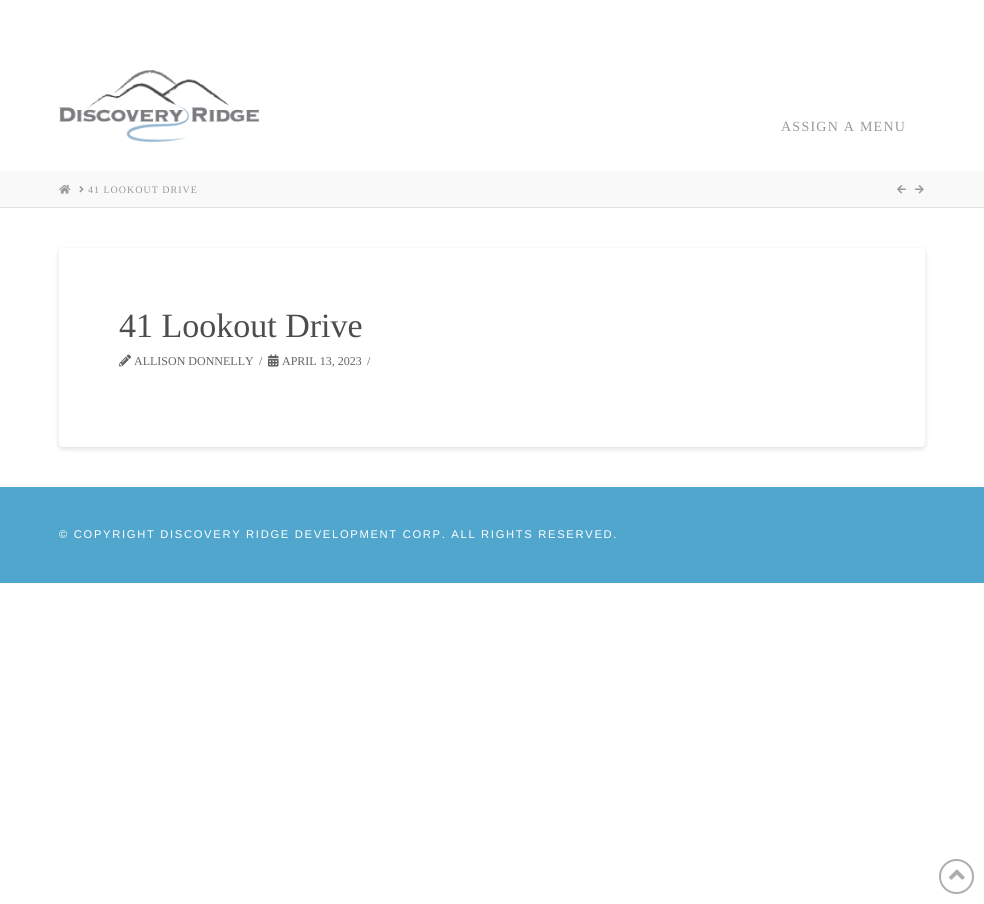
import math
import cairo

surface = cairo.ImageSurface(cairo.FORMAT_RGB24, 984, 904)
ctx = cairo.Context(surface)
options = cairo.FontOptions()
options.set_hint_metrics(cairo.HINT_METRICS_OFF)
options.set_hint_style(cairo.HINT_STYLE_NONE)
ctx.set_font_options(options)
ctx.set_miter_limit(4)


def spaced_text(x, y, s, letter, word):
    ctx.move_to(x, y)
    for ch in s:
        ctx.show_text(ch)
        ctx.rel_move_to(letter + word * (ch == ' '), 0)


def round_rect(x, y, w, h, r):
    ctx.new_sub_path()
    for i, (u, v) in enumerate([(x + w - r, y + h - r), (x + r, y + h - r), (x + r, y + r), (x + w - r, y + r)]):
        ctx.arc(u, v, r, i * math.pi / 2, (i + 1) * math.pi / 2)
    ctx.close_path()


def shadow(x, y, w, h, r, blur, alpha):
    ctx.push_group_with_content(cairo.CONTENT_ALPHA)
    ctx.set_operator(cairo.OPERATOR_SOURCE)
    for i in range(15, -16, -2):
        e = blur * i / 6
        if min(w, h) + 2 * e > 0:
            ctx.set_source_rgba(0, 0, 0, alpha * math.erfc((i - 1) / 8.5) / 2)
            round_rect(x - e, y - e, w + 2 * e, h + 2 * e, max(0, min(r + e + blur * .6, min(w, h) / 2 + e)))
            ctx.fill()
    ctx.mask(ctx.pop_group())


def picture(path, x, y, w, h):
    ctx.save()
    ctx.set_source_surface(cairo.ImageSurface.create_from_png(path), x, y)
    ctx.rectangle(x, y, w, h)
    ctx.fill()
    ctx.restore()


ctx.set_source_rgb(1, 1, 1)
ctx.paint()
picture("img1.png", 59, 70, 200, 72)
ctx.select_font_face("Liberation Serif")
ctx.set_font_size(14)
ctx.set_source_rgb(0.6, 0.6, 0.6)
spaced_text(781, 131, "ASSIGN A MENU", 1.25, 0)
ctx.set_source_rgb(0.976, 0.976, 0.976)
ctx.rectangle(0, 171, 984, 36)
ctx.fill()
ctx.set_source_rgb(0.878, 0.878, 0.878)
ctx.rectangle(0, 207, 984, 1)
ctx.fill()
picture("img2.png", 59, 184, 12, 10)
picture("img3.png", 79, 186, 5, 7)
ctx.set_font_size(10)
ctx.set_source_rgb(0.6, 0.6, 0.6)
spaced_text(88, 193, "41 LOOKOUT DRIVE", 1, 0)
picture("img4.png", 897, 185, 9, 9)
picture("img5.png", 915, 185, 9, 9)
ctx.set_source_rgb(0, 0, 0)
shadow(59, 250, 866, 199, 4, 2.5, 0.13)
ctx.set_source_rgb(1, 1, 1)
round_rect(59, 248, 866, 199, 4)
ctx.fill()
ctx.set_font_size(34)
ctx.set_source_rgb(0.302, 0.302, 0.31)
ctx.move_to(119, 337)
ctx.show_text("41 Lookout Drive")
picture("img6.png", 119, 354, 12, 13)
ctx.set_font_size(12)
ctx.set_source_rgb(0.388, 0.388, 0.388)
ctx.move_to(134, 365)
ctx.show_text("ALLISON DONNELLY")
ctx.move_to(259, 365)
ctx.show_text("/")
picture("img7.png", 268, 354, 11, 13)
ctx.move_to(282, 365)
ctx.show_text("APRIL 13, 2023")
ctx.move_to(367, 365)
ctx.show_text("/")
ctx.set_source_rgb(0.314, 0.651, 0.804)
ctx.rectangle(0, 487, 984, 96)
ctx.fill()
ctx.select_font_face("Liberation Sans")
ctx.set_font_size(11.2)
ctx.set_source_rgb(1, 1, 1)
spaced_text(59, 538, "© COPYRIGHT DISCOVERY RIDGE DEVELOPMENT CORP. ALL RIGHTS RESERVED.", 1.68, 0)
ctx.new_path()
ctx.arc(956.5, 876.5, 16.5, 0, 2 * math.pi)
ctx.set_source_rgb(0.682, 0.682, 0.682)
ctx.stroke()
picture("img8.png", 949, 869, 16, 11)
surface.write_to_png("page.png")
